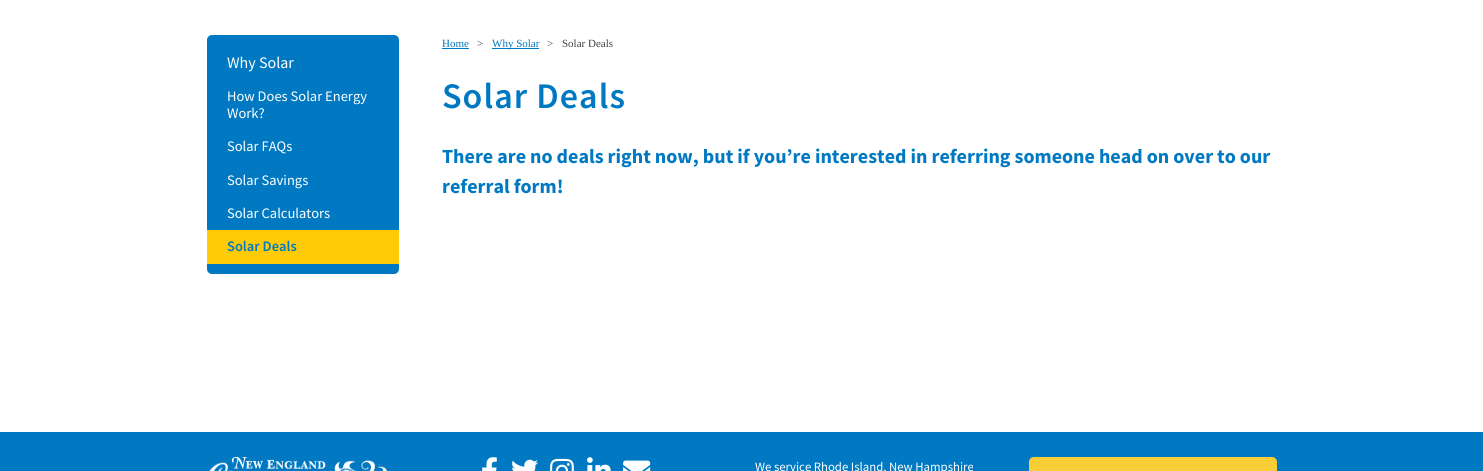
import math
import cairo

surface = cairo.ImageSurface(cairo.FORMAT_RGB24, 1483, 471)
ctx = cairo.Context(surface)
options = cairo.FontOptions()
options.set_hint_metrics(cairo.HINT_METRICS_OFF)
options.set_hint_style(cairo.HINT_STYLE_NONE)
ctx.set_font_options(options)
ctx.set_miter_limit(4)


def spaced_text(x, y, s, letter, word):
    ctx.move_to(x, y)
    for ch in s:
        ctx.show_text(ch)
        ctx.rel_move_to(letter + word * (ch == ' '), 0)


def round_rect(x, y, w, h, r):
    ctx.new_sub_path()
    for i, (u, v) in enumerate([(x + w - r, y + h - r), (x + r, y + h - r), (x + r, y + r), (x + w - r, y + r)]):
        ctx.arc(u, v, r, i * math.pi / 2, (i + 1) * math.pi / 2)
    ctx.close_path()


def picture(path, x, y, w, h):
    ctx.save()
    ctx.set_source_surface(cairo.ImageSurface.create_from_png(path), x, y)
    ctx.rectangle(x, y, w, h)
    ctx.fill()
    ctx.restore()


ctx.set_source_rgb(1, 1, 1)
ctx.paint()
ctx.set_source_rgb(0, 0.475, 0.761)
round_rect(207, 35, 192, 239, 5)
ctx.fill()
ctx.select_font_face("Source Sans Pro")
ctx.set_font_size(16)
ctx.set_source_rgb(1, 1, 1)
ctx.move_to(227, 68)
ctx.show_text("Why Solar")
ctx.set_font_size(14.5)
ctx.move_to(227, 101)
ctx.show_text("How Does Solar Energy")
ctx.move_to(227, 118)
ctx.show_text("Work?")
ctx.move_to(227, 151)
ctx.show_text("Solar FAQs")
ctx.move_to(227, 185)
ctx.show_text("Solar Savings")
ctx.move_to(227, 218)
ctx.show_text("Solar Calculators")
ctx.set_source_rgb(1, 0.796, 0.031)
ctx.rectangle(207, 230, 192, 34)
ctx.fill()
ctx.select_font_face("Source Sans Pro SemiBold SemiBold")
ctx.set_source_rgb(0, 0.475, 0.761)
ctx.move_to(227, 251)
ctx.show_text("Solar Deals")
ctx.select_font_face("Liberation Serif")
ctx.set_font_size(11)
ctx.move_to(442, 47)
ctx.show_text("Home")
ctx.rectangle(442, 48, 27, 1)
ctx.fill()
ctx.set_source_rgb(0.259, 0.259, 0.259)
ctx.move_to(477, 47)
ctx.show_text(">")
ctx.set_source_rgb(0, 0.475, 0.761)
ctx.rectangle(492, 48, 47, 1)
ctx.fill()
ctx.move_to(492, 47)
ctx.show_text("Why Solar")
ctx.set_source_rgb(0.259, 0.259, 0.259)
ctx.move_to(547, 47)
ctx.show_text(">")
ctx.move_to(562, 47)
ctx.show_text("Solar Deals")
ctx.select_font_face("Source Sans Pro SemiBold SemiBold")
ctx.set_font_size(36)
ctx.set_source_rgb(0, 0.475, 0.761)
spaced_text(442, 108, "Solar Deals", 1, 0)
ctx.select_font_face("Source Sans Pro", cairo.FONT_SLANT_NORMAL, cairo.FONT_WEIGHT_BOLD)
ctx.set_font_size(20)
ctx.move_to(442, 163)
ctx.show_text("There are no deals right now, but if you’re interested in referring someone head on over to our")
ctx.move_to(442, 193)
ctx.show_text("referral form!")
ctx.rectangle(0, 432, 1483, 39)
ctx.fill()
picture("img1.png", 209, 457, 178, 14)
picture("img2.png", 482, 457, 15, 14)
picture("img3.png", 512, 459, 26, 12)
picture("img4.png", 550, 458, 24, 13)
picture("img5.png", 587, 457, 24, 14)
picture("img6.png", 623, 460, 28, 11)
ctx.select_font_face("Source Sans Pro")
ctx.set_font_size(12.75)
ctx.set_source_rgb(1, 1, 1)
ctx.move_to(755, 471)
ctx.show_text("We service Rhode Island, New Hampshire")
ctx.set_source_rgb(0.976, 0.804, 0.212)
round_rect(1029, 457, 248, 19, 5)
ctx.fill()
surface.write_to_png("page.png")
